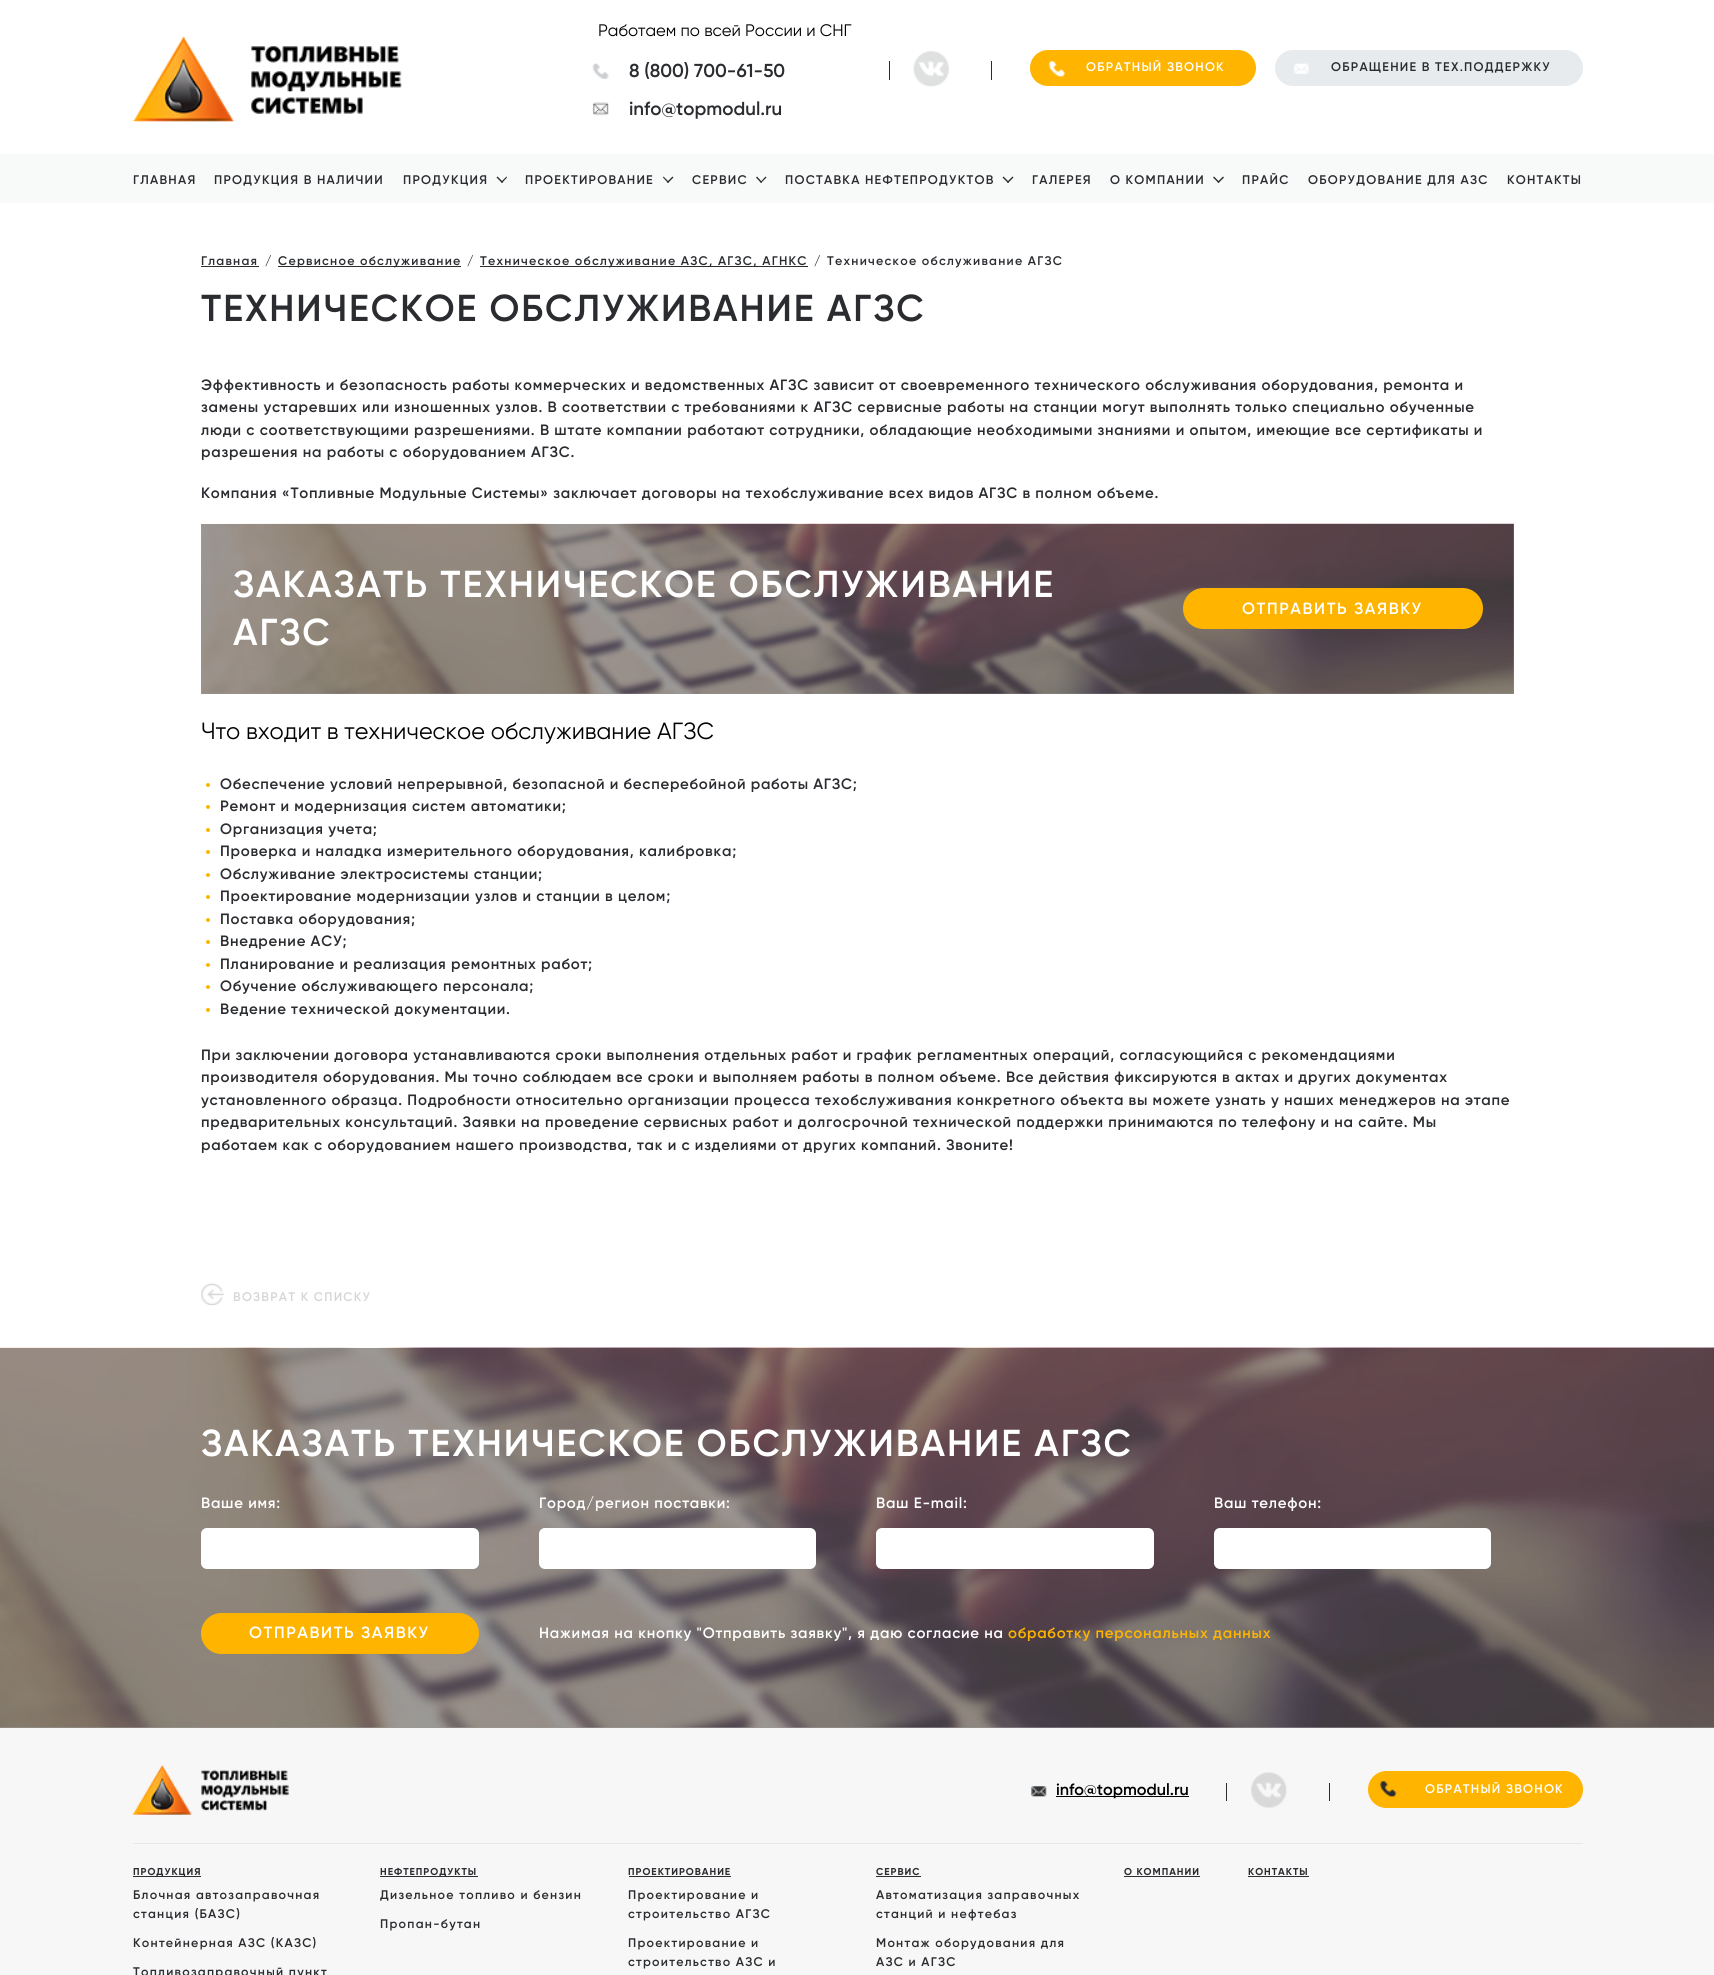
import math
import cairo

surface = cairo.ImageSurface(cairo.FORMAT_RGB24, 1714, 1975)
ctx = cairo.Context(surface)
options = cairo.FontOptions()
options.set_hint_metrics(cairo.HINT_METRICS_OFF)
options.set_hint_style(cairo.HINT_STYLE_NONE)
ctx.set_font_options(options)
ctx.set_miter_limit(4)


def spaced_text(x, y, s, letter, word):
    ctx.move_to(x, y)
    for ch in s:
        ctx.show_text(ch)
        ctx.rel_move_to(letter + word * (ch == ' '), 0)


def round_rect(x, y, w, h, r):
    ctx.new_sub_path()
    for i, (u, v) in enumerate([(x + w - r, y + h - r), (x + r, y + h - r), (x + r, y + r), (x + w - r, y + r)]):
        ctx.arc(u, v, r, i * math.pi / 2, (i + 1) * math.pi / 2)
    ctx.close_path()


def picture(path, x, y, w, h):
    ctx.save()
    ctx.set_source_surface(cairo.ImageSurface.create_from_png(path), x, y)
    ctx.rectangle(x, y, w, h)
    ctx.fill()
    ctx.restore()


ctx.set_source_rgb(1, 1, 1)
ctx.paint()
ctx.set_source_rgb(0.608, 0.604, 0.596)
ctx.rectangle(0, 1727, 1714, 1)
ctx.fill()
ctx.rectangle(201, 524, 1313, 170)
ctx.fill()
picture("img1.png", 132, 36, 270, 86)
ctx.select_font_face("Gilroy")
ctx.set_font_size(16.7)
ctx.set_source_rgb(0, 0, 0)
ctx.move_to(598, 36)
ctx.show_text("Работаем по всей России и СНГ")
picture("img2.png", 592, 63, 17, 16)
ctx.select_font_face("Gilroy SemiBold")
ctx.set_font_size(18.75)
ctx.set_source_rgb(0.165, 0.173, 0.188)
ctx.move_to(629, 77)
ctx.show_text("8 (800) 700-61-50")
picture("img3.png", 592, 102, 17, 14)
ctx.move_to(629, 115)
ctx.show_text("info@topmodul.ru")
ctx.rectangle(889, 61, 1, 19)
ctx.fill()
picture("img4.png", 913, 51, 36, 36)
ctx.rectangle(991, 61, 1, 19)
ctx.fill()
ctx.set_source_rgb(1, 0.706, 0)
round_rect(1030, 50, 226, 36, 18)
ctx.fill()
picture("img5.png", 1048, 61, 17, 16)
ctx.set_font_size(12.5)
ctx.set_source_rgb(1, 1, 1)
spaced_text(1086, 71, "ОБРАТНЫЙ ЗВОНОК", 1.25, 0)
ctx.set_source_rgb(0.91, 0.918, 0.929)
round_rect(1275, 50, 308, 36, 18)
ctx.fill()
picture("img6.png", 1294, 63, 15, 11)
ctx.set_source_rgb(0.165, 0.173, 0.188)
spaced_text(1331, 71, "ОБРАЩЕНИЕ В ТЕХ.ПОДДЕРЖКУ", 1.25, 0)
ctx.set_source_rgb(0.969, 0.973, 0.976)
ctx.rectangle(0, 154, 1714, 49)
ctx.fill()
ctx.set_source_rgb(0.165, 0.173, 0.188)
spaced_text(133, 184, "ГЛАВНАЯ", 1.25, 0)
spaced_text(214, 184, "ПРОДУКЦИЯ В НАЛИЧИИ", 1.25, 0)
spaced_text(403, 184, "ПРОДУКЦИЯ", 1.25, 0)
ctx.new_path()
ctx.move_to(502, 183)
ctx.line_to(496.5, 177.5)
ctx.line_to(497.5, 176.5)
ctx.line_to(503, 182)
ctx.close_path()
ctx.fill()
ctx.new_path()
ctx.move_to(502, 183)
ctx.line_to(501, 182)
ctx.line_to(506.5, 176.5)
ctx.line_to(507, 177.5)
ctx.close_path()
ctx.fill()
spaced_text(525, 184, "ПРОЕКТИРОВАНИЕ", 1.25, 0)
ctx.new_path()
ctx.move_to(668, 183)
ctx.line_to(663, 177.5)
ctx.line_to(663.5, 176.5)
ctx.line_to(669, 182)
ctx.close_path()
ctx.fill()
ctx.new_path()
ctx.move_to(668, 183)
ctx.line_to(667, 182)
ctx.line_to(672.5, 176.5)
ctx.line_to(673.5, 177.5)
ctx.close_path()
ctx.fill()
spaced_text(692, 184, "СЕРВИС", 1.25, 0)
ctx.new_path()
ctx.move_to(761, 183)
ctx.line_to(756, 177.5)
ctx.line_to(757, 176.5)
ctx.line_to(762, 182)
ctx.close_path()
ctx.fill()
ctx.new_path()
ctx.move_to(761, 183)
ctx.line_to(760.5, 182)
ctx.line_to(765.5, 176.5)
ctx.line_to(766.5, 177.5)
ctx.close_path()
ctx.fill()
spaced_text(785, 184, "ПОСТАВКА НЕФТЕПРОДУКТОВ", 1.25, 0)
ctx.new_path()
ctx.move_to(1008, 183)
ctx.line_to(1002.5, 177.5)
ctx.line_to(1003.5, 176.5)
ctx.line_to(1009, 182)
ctx.close_path()
ctx.fill()
ctx.new_path()
ctx.move_to(1008, 183)
ctx.line_to(1007, 182)
ctx.line_to(1012.5, 176.5)
ctx.line_to(1013.5, 177.5)
ctx.close_path()
ctx.fill()
spaced_text(1032, 184, "ГАЛЕРЕЯ", 1.25, 0)
spaced_text(1110, 184, "О КОМПАНИИ", 1.25, 0)
ctx.new_path()
ctx.move_to(1218.5, 183)
ctx.line_to(1213, 177.5)
ctx.line_to(1214, 176.5)
ctx.line_to(1219.5, 182)
ctx.close_path()
ctx.fill()
ctx.new_path()
ctx.move_to(1218.5, 183)
ctx.line_to(1217.5, 182)
ctx.line_to(1223, 176.5)
ctx.line_to(1224, 177.5)
ctx.close_path()
ctx.fill()
spaced_text(1242, 184, "ПРАЙС", 1.25, 0)
spaced_text(1308, 184, "ОБОРУДОВАНИЕ ДЛЯ АЗС", 1.25, 0)
spaced_text(1507, 184, "КОНТАКТЫ", 1.25, 0)
spaced_text(201, 265, "Главная", 1.25, 0)
ctx.rectangle(201, 266, 58, 1)
ctx.fill()
spaced_text(265, 265, "/", 1.25, 0)
ctx.rectangle(278, 266, 183, 1)
ctx.fill()
spaced_text(278, 265, "Сервисное обслуживание", 1.25, 0)
spaced_text(467, 265, "/", 1.25, 0)
ctx.rectangle(480, 266, 328, 1)
ctx.fill()
spaced_text(480, 265, "Техническое обслуживание АЗС, АГЗС, АГНКС", 1.25, 0)
spaced_text(814, 265, "/", 1.25, 0)
spaced_text(827, 265, "Техническое обслуживание АГЗС", 1.25, 0)
ctx.set_font_size(37.5)
spaced_text(201, 321, "ТЕХНИЧЕСКОЕ ОБСЛУЖИВАНИЕ АГЗС", 1.9, 0)
ctx.set_font_size(15)
spaced_text(201, 390, "Эффективность и безопасность работы коммерческих и ведомственных АГЗС зависит от своевременного технического обслуживания оборудования, ремонта и", 0.75, 0)
spaced_text(201, 412, "замены устаревших или изношенных узлов. В соответствии с требованиями к АГЗС сервисные работы на станции могут выполнять только специально обученные", 0.75, 0)
spaced_text(201, 435, "люди с соответствующими разрешениями. В штате компании работают сотрудники, обладающие необходимыми знаниями и опытом, имеющие все сертификаты и", 0.75, 0)
spaced_text(201, 457, "разрешения на работы с оборудованием АГЗС.", 0.75, 0)
spaced_text(201, 498, "Компания «Топливные Модульные Системы» заключает договоры на техобслуживание всех видов АГЗС в полном объеме.", 0.75, 0)
picture("img7.png", 201, 523, 1313, 171)
ctx.set_font_size(37.5)
ctx.set_source_rgb(1, 1, 1)
spaced_text(233, 597, "ЗАКАЗАТЬ ТЕХНИЧЕСКОЕ ОБСЛУЖИВАНИЕ", 1.9, 0)
spaced_text(233, 645, "АГЗС", 1.9, 0)
ctx.set_source_rgb(1, 0.706, 0)
round_rect(1183, 588, 300, 41, 20.5)
ctx.fill()
ctx.set_font_size(16.25)
ctx.set_source_rgb(1, 1, 1)
spaced_text(1242, 614, "ОТПРАВИТЬ ЗАЯВКУ", 1.6, 0)
ctx.select_font_face("Gilroy")
ctx.set_font_size(23.4)
ctx.set_source_rgb(0, 0, 0)
ctx.move_to(201, 739)
ctx.show_text("Что входит в техническое обслуживание АГЗС")
ctx.set_source_rgb(1, 0.706, 0)
ctx.new_path()
ctx.arc(208, 785, 2, 0, 2 * math.pi)
ctx.fill()
ctx.select_font_face("Gilroy SemiBold")
ctx.set_font_size(15)
ctx.set_source_rgb(0.165, 0.173, 0.188)
spaced_text(220, 789, "Обеспечение условий непрерывной, безопасной и бесперебойной работы АГЗС;", 0.75, 0)
ctx.set_source_rgb(1, 0.706, 0)
ctx.new_path()
ctx.arc(208, 807, 2, 0, 2 * math.pi)
ctx.fill()
ctx.set_source_rgb(0.165, 0.173, 0.188)
spaced_text(220, 811, "Ремонт и модернизация систем автоматики;", 0.75, 0)
ctx.set_source_rgb(1, 0.706, 0)
ctx.new_path()
ctx.arc(208, 830, 2, 0, 2 * math.pi)
ctx.fill()
ctx.set_source_rgb(0.165, 0.173, 0.188)
spaced_text(220, 834, "Организация учета;", 0.75, 0)
ctx.set_source_rgb(1, 0.706, 0)
ctx.new_path()
ctx.arc(208, 852, 2, 0, 2 * math.pi)
ctx.fill()
ctx.set_source_rgb(0.165, 0.173, 0.188)
spaced_text(220, 856, "Проверка и наладка измерительного оборудования, калибровка;", 0.75, 0)
ctx.set_source_rgb(1, 0.706, 0)
ctx.new_path()
ctx.arc(208, 875, 2, 0, 2 * math.pi)
ctx.fill()
ctx.set_source_rgb(0.165, 0.173, 0.188)
spaced_text(220, 879, "Обслуживание электросистемы станции;", 0.75, 0)
ctx.set_source_rgb(1, 0.706, 0)
ctx.new_path()
ctx.arc(208, 897, 2, 0, 2 * math.pi)
ctx.fill()
ctx.set_source_rgb(0.165, 0.173, 0.188)
spaced_text(220, 901, "Проектирование модернизации узлов и станции в целом;", 0.75, 0)
ctx.set_source_rgb(1, 0.706, 0)
ctx.new_path()
ctx.arc(208, 920, 2, 0, 2 * math.pi)
ctx.fill()
ctx.set_source_rgb(0.165, 0.173, 0.188)
spaced_text(220, 924, "Поставка оборудования;", 0.75, 0)
ctx.set_source_rgb(1, 0.706, 0)
ctx.new_path()
ctx.arc(208, 942, 2, 0, 2 * math.pi)
ctx.fill()
ctx.set_source_rgb(0.165, 0.173, 0.188)
spaced_text(220, 946, "Внедрение АСУ;", 0.75, 0)
ctx.set_source_rgb(1, 0.706, 0)
ctx.new_path()
ctx.arc(208, 965, 2, 0, 2 * math.pi)
ctx.fill()
ctx.set_source_rgb(0.165, 0.173, 0.188)
spaced_text(220, 969, "Планирование и реализация ремонтных работ;", 0.75, 0)
ctx.set_source_rgb(1, 0.706, 0)
ctx.new_path()
ctx.arc(208, 987, 2, 0, 2 * math.pi)
ctx.fill()
ctx.set_source_rgb(0.165, 0.173, 0.188)
spaced_text(220, 991, "Обучение обслуживающего персонала;", 0.75, 0)
ctx.set_source_rgb(1, 0.706, 0)
ctx.new_path()
ctx.arc(208, 1010, 2, 0, 2 * math.pi)
ctx.fill()
ctx.set_source_rgb(0.165, 0.173, 0.188)
spaced_text(220, 1014, "Ведение технической документации.", 0.75, 0)
spaced_text(201, 1060, "При заключении договора устанавливаются сроки выполнения отдельных работ и график регламентных операций, согласующийся с рекомендациями", 0.75, 0)
spaced_text(201, 1082, "производителя оборудования. Мы точно соблюдаем все сроки и выполняем работы в полном объеме. Все действия фиксируются в актах и других документах", 0.75, 0)
spaced_text(201, 1105, "установленного образца. Подробности относительно организации процесса техобслуживания конкретного объекта вы можете узнать у наших менеджеров на этапе", 0.75, 0)
spaced_text(201, 1127, "предварительных консультаций. Заявки на проведение сервисных работ и долгосрочной технической поддержки принимаются по телефону и на сайте. Мы", 0.75, 0)
spaced_text(201, 1150, "работаем как с оборудованием нашего производства, так и с изделиями от других компаний. Звоните!", 0.75, 0)
picture("img8.png", 201, 1283, 23, 23)
ctx.set_font_size(12.5)
ctx.set_source_rgb(0.839, 0.839, 0.839)
spaced_text(233, 1301, "ВОЗВРАТ К СПИСКУ", 1.25, 0)
picture("img9.png", 0, 1347, 1714, 381)
ctx.set_font_size(37.5)
ctx.set_source_rgb(1, 1, 1)
spaced_text(201, 1456, "ЗАКАЗАТЬ ТЕХНИЧЕСКОЕ ОБСЛУЖИВАНИЕ АГЗС", 1.9, 0)
ctx.set_font_size(15)
spaced_text(201, 1508, "Ваше имя:", 0.75, 0)
round_rect(201, 1528, 278, 41, 6)
ctx.fill()
spaced_text(539, 1508, "Город/регион поставки:", 0.75, 0)
round_rect(539, 1528, 277, 41, 6)
ctx.fill()
spaced_text(876, 1508, "Ваш E-mail:", 0.75, 0)
round_rect(876, 1528, 278, 41, 6)
ctx.fill()
spaced_text(1214, 1508, "Ваш телефон:", 0.75, 0)
round_rect(1214, 1528, 277, 41, 6)
ctx.fill()
ctx.set_source_rgb(1, 0.706, 0)
round_rect(201, 1613, 278, 41, 20.5)
ctx.fill()
ctx.set_font_size(16.25)
ctx.set_source_rgb(1, 1, 1)
spaced_text(249, 1638, "ОТПРАВИТЬ ЗАЯВКУ", 1.6, 0)
ctx.set_font_size(15)
spaced_text(539, 1638, "Нажимая на кнопку \"Отправить заявку\", я даю согласие на", 0.75, 0)
ctx.set_source_rgb(1, 0.706, 0)
spaced_text(1008, 1638, "обработку персональных данных", 0.75, 0)
ctx.set_source_rgb(0.969, 0.965, 0.965)
ctx.rectangle(0, 1728, 1714, 247)
ctx.fill()
ctx.set_source_rgb(0.914, 0.91, 0.914)
ctx.rectangle(133, 1843, 1450, 1)
ctx.fill()
picture("img10.png", 132, 1765, 157, 50)
picture("img11.png", 1031, 1786, 16, 11)
ctx.set_source_rgb(0, 0, 0)
ctx.rectangle(1056, 1796, 133, 1)
ctx.fill()
ctx.set_font_size(16.25)
ctx.move_to(1056, 1795)
ctx.show_text("info@topmodul.ru")
ctx.set_source_rgb(0.165, 0.173, 0.188)
ctx.rectangle(1226, 1783, 1, 18)
ctx.fill()
picture("img12.png", 1251, 1772, 36, 36)
ctx.rectangle(1329, 1783, 1, 18)
ctx.fill()
ctx.set_source_rgb(1, 0.706, 0)
round_rect(1368, 1771, 215, 37, 18.5)
ctx.fill()
picture("img13.png", 1380, 1781, 17, 16)
ctx.set_font_size(12.5)
ctx.set_source_rgb(1, 1, 1)
spaced_text(1425, 1793, "ОБРАТНЫЙ ЗВОНОК", 1.25, 0)
ctx.set_source_rgb(0.169, 0.176, 0.192)
ctx.rectangle(133, 1876, 68, 1)
ctx.fill()
ctx.select_font_face("Gilroy", cairo.FONT_SLANT_NORMAL, cairo.FONT_WEIGHT_BOLD)
ctx.set_font_size(10)
ctx.set_source_rgb(0.165, 0.173, 0.188)
spaced_text(133, 1875, "ПРОДУКЦИЯ", 1, 0)
ctx.select_font_face("Gilroy SemiBold")
ctx.set_font_size(12.5)
spaced_text(133, 1899, "Блочная автозаправочная", 1.25, 0)
spaced_text(133, 1918, "станция (БАЗС)", 1.25, 0)
spaced_text(133, 1947, "Контейнерная АЗС (КАЗС)", 1.25, 0)
spaced_text(133, 1976, "Топливозаправочный пункт", 1.25, 0)
ctx.set_source_rgb(0.169, 0.176, 0.192)
ctx.rectangle(380, 1876, 98, 1)
ctx.fill()
ctx.select_font_face("Gilroy", cairo.FONT_SLANT_NORMAL, cairo.FONT_WEIGHT_BOLD)
ctx.set_font_size(10)
ctx.set_source_rgb(0.165, 0.173, 0.188)
spaced_text(380, 1875, "НЕФТЕПРОДУКТЫ", 1, 0)
ctx.select_font_face("Gilroy SemiBold")
ctx.set_font_size(12.5)
spaced_text(380, 1899, "Дизельное топливо и бензин", 1.25, 0)
spaced_text(380, 1928, "Пропан-бутан", 1.25, 0)
ctx.select_font_face("Gilroy", cairo.FONT_SLANT_NORMAL, cairo.FONT_WEIGHT_BOLD)
ctx.set_font_size(10)
spaced_text(628, 1875, "ПРОЕКТИРОВАНИЕ", 1, 0)
ctx.set_source_rgb(0.169, 0.176, 0.192)
ctx.rectangle(629, 1876, 102, 1)
ctx.fill()
ctx.select_font_face("Gilroy SemiBold")
ctx.set_font_size(12.5)
ctx.set_source_rgb(0.165, 0.173, 0.188)
spaced_text(628, 1899, "Проектирование и", 1.25, 0)
spaced_text(628, 1918, "строительство АГЗС", 1.25, 0)
spaced_text(628, 1947, "Проектирование и", 1.25, 0)
spaced_text(628, 1966, "строительство АЗС и", 1.25, 0)
ctx.select_font_face("Gilroy", cairo.FONT_SLANT_NORMAL, cairo.FONT_WEIGHT_BOLD)
ctx.set_font_size(10)
spaced_text(876, 1875, "СЕРВИС", 1, 0)
ctx.set_source_rgb(0.169, 0.176, 0.192)
ctx.rectangle(876, 1876, 45, 1)
ctx.fill()
ctx.select_font_face("Gilroy SemiBold")
ctx.set_font_size(12.5)
ctx.set_source_rgb(0.165, 0.173, 0.188)
spaced_text(876, 1899, "Автоматизация заправочных", 1.25, 0)
spaced_text(876, 1918, "станций и нефтебаз", 1.25, 0)
spaced_text(876, 1947, "Монтаж оборудования для", 1.25, 0)
spaced_text(876, 1966, "АЗС и АГЗС", 1.25, 0)
ctx.select_font_face("Gilroy", cairo.FONT_SLANT_NORMAL, cairo.FONT_WEIGHT_BOLD)
ctx.set_font_size(10)
spaced_text(1124, 1875, "О КОМПАНИИ", 1, 0)
ctx.set_source_rgb(0.169, 0.176, 0.192)
ctx.rectangle(1124, 1876, 76, 1)
ctx.fill()
ctx.set_source_rgb(0.165, 0.173, 0.188)
spaced_text(1248, 1875, "КОНТАКТЫ", 1, 0)
ctx.set_source_rgb(0.169, 0.176, 0.192)
ctx.rectangle(1248, 1876, 61, 1)
ctx.fill()
surface.write_to_png("page.png")
